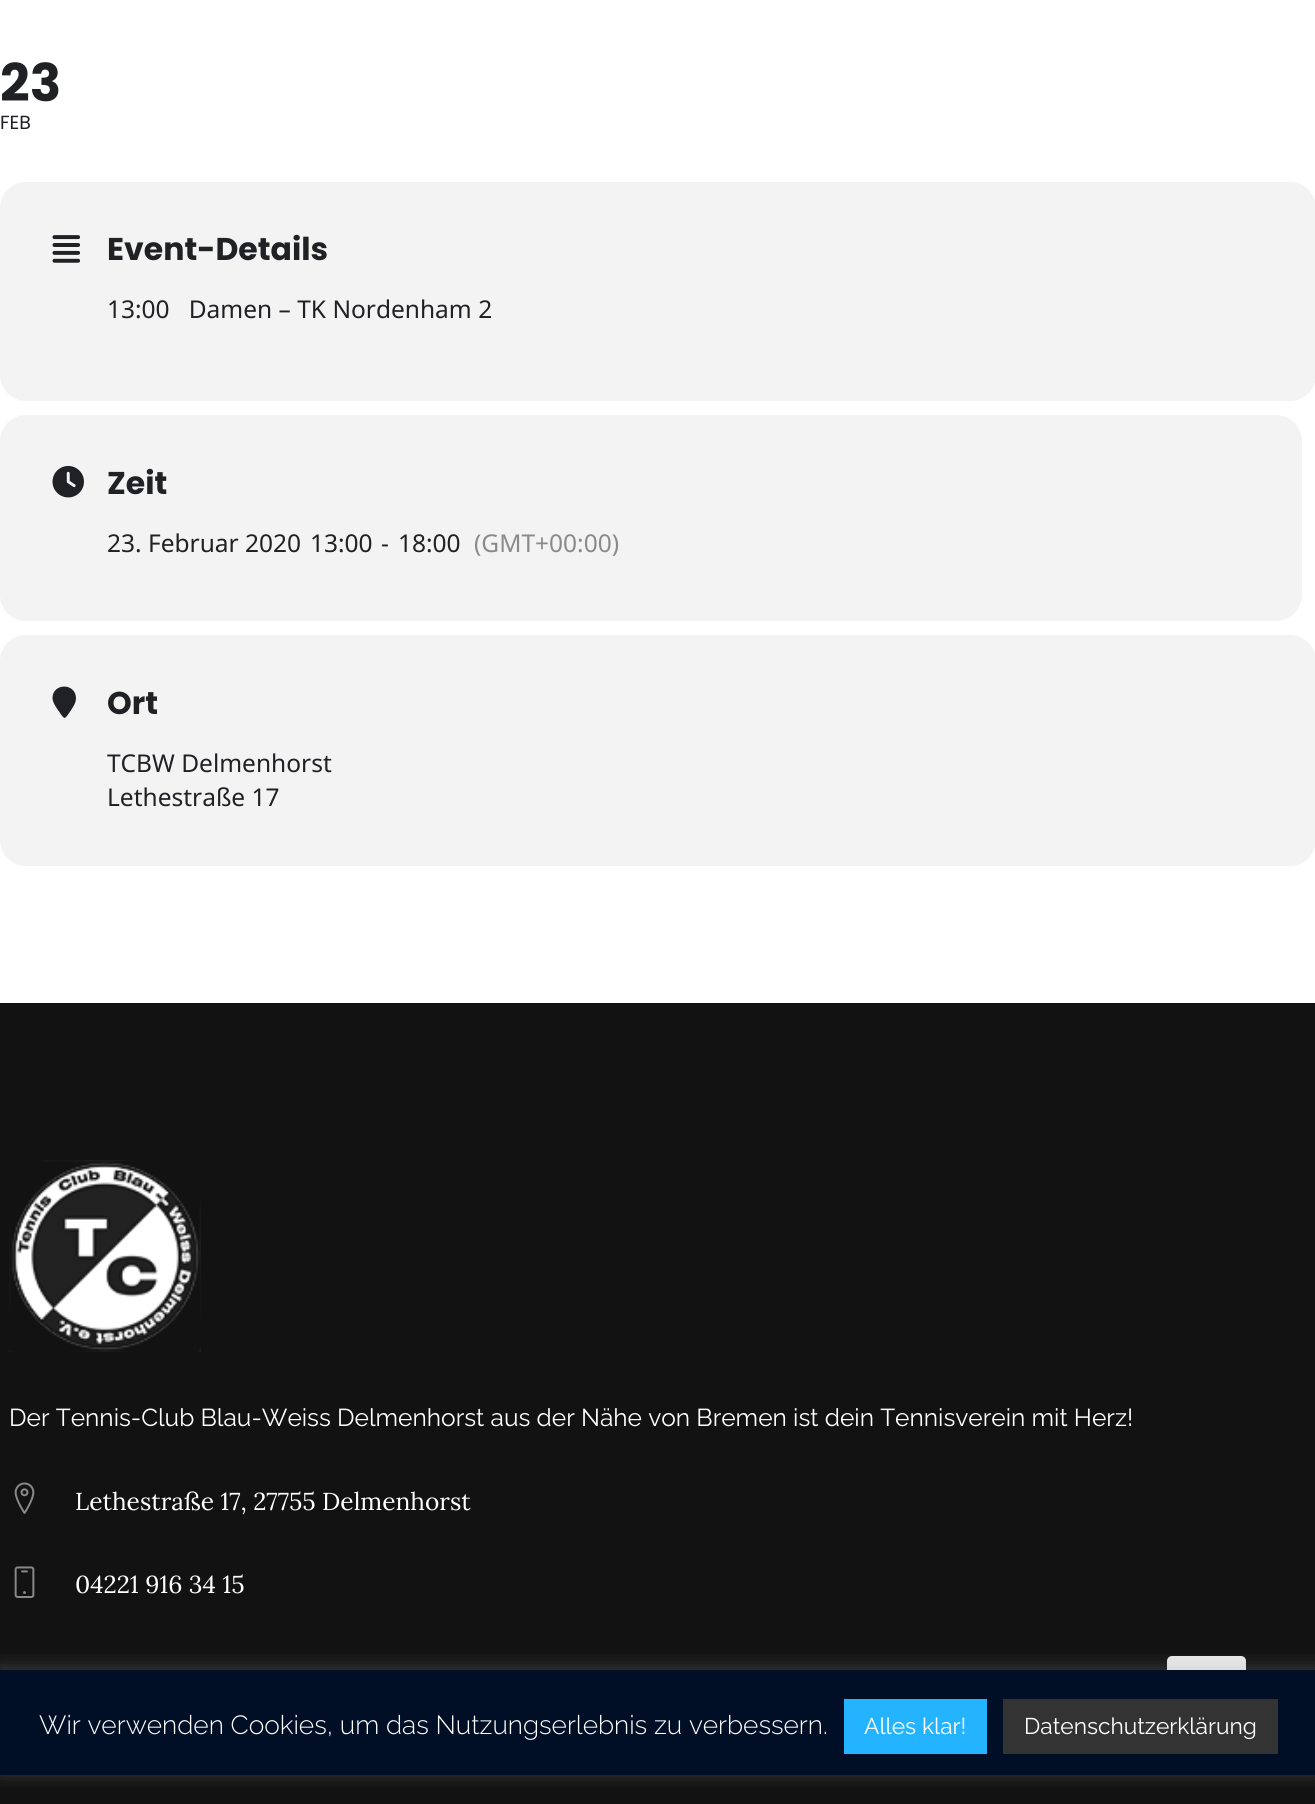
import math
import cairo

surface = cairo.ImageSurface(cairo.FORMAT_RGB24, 1315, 1804)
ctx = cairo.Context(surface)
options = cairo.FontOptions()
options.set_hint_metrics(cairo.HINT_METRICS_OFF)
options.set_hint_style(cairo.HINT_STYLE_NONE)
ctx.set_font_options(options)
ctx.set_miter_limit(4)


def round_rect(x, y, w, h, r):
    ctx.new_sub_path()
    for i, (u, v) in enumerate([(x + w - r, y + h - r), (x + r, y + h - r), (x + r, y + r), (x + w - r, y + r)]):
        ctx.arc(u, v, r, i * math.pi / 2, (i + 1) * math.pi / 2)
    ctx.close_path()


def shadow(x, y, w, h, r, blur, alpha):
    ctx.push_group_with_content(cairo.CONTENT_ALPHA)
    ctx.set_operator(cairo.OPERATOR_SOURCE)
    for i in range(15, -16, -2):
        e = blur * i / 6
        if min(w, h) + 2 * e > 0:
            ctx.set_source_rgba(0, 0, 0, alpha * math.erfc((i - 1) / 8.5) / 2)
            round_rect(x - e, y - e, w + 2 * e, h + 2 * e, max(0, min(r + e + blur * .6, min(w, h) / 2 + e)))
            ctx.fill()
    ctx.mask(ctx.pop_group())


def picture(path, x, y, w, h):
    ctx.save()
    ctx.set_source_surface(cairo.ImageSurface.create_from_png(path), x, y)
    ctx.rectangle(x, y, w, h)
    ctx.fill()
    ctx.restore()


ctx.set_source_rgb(1, 1, 1)
ctx.paint()
ctx.select_font_face("Poppins", cairo.FONT_SLANT_NORMAL, cairo.FONT_WEIGHT_BOLD)
ctx.set_font_size(52)
ctx.set_source_rgb(0.125, 0.129, 0.141)
ctx.move_to(0, 101)
ctx.show_text("23")
ctx.select_font_face("Poppins")
ctx.set_font_size(19)
ctx.move_to(0, 129)
ctx.show_text("FEB")
ctx.set_source_rgb(0.953, 0.953, 0.953)
round_rect(0, 182, 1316, 219, 26)
ctx.fill()
picture("img1.png", 52, 235, 28, 28)
ctx.select_font_face("Poppins", cairo.FONT_SLANT_NORMAL, cairo.FONT_WEIGHT_BOLD)
ctx.set_font_size(31.5)
ctx.set_source_rgb(0.125, 0.129, 0.141)
ctx.move_to(107, 260)
ctx.show_text("Event-Details")
ctx.select_font_face("Noto Sans")
ctx.set_font_size(24.5)
ctx.move_to(107, 318)
ctx.show_text("13:00   Damen – TK Nordenham 2")
ctx.set_source_rgb(0.953, 0.953, 0.953)
round_rect(0, 415, 1302, 206, 26)
ctx.fill()
picture("img2.png", 52, 465, 32, 33)
ctx.select_font_face("Poppins", cairo.FONT_SLANT_NORMAL, cairo.FONT_WEIGHT_BOLD)
ctx.set_font_size(31.5)
ctx.set_source_rgb(0.125, 0.129, 0.141)
ctx.move_to(107, 494)
ctx.show_text("Zeit")
ctx.select_font_face("Noto Sans")
ctx.set_font_size(24.5)
ctx.move_to(107, 552)
ctx.show_text("23. Februar 2020")
ctx.move_to(310, 552)
ctx.show_text("13:00")
ctx.move_to(381, 552)
ctx.show_text("-")
ctx.move_to(398, 552)
ctx.show_text("18:00")
ctx.set_source_rgb(0.541, 0.541, 0.549)
ctx.move_to(474, 552)
ctx.show_text("(GMT+00:00)")
ctx.set_source_rgb(0.953, 0.953, 0.953)
round_rect(0, 635, 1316, 231, 26)
ctx.fill()
ctx.set_source_rgb(0.125, 0.129, 0.141)
ctx.new_path()
ctx.move_to(76, 698)
ctx.curve_to(76, 703, 73, 707, 70.5, 711)
ctx.curve_to(64.5, 719.5, 65, 720.5, 59, 711.5)
ctx.curve_to(56.5, 708, 52.5, 702.5, 52.5, 698)
ctx.curve_to(52.5, 683, 75.5, 682.5, 76, 698)
ctx.close_path()
ctx.fill()
ctx.select_font_face("Poppins", cairo.FONT_SLANT_NORMAL, cairo.FONT_WEIGHT_BOLD)
ctx.set_font_size(31.5)
ctx.move_to(107, 714)
ctx.show_text("Ort")
ctx.select_font_face("Noto Sans")
ctx.set_font_size(24.5)
ctx.move_to(107, 772)
ctx.show_text("TCBW Delmenhorst")
ctx.move_to(107, 806)
ctx.show_text("Lethestraße 17")
ctx.set_source_rgb(0.071, 0.071, 0.071)
ctx.rectangle(0, 1003, 1315, 801)
ctx.fill()
picture("img3.png", 9, 1160, 192, 192)
ctx.select_font_face("Raleway")
ctx.set_source_rgb(1, 1, 1)
ctx.move_to(9, 1426)
ctx.show_text("Der Tennis-Club Blau-Weiss Delmenhorst aus der Nähe von Bremen ist dein Tennisverein mit Herz!")
picture("img4.png", 14, 1482, 21, 32)
ctx.select_font_face("Lora")
ctx.move_to(75, 1510)
ctx.show_text("Lethestraße 17, 27755 Delmenhorst")
picture("img5.png", 14, 1566, 21, 32)
ctx.move_to(75, 1593)
ctx.show_text("04221 916 34 15")
ctx.set_source_rgb(0.91, 0.91, 0.91)
round_rect(1167, 1656, 79, 78, 5)
ctx.fill()
ctx.set_source_rgb(0.675, 0.671, 0.671)
shadow(0, 1668, 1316, 105, 0, 9, 0.3)
ctx.set_source_rgb(0.004, 0.059, 0.149)
ctx.rectangle(0, 1670, 1315, 105)
ctx.fill()
ctx.select_font_face("Raleway Light")
ctx.set_font_size(26.25)
ctx.set_source_rgb(1, 1, 1)
ctx.move_to(39, 1734)
ctx.show_text("Wir verwenden Cookies, um das Nutzungserlebnis zu verbessern.")
ctx.set_source_rgb(0.141, 0.706, 1)
ctx.rectangle(844, 1699, 143, 55)
ctx.fill()
ctx.select_font_face("Raleway")
ctx.set_font_size(22.75)
ctx.set_source_rgb(1, 1, 1)
ctx.move_to(864, 1734)
ctx.show_text("Alles klar!")
ctx.set_source_rgb(0.2, 0.2, 0.2)
ctx.rectangle(1003, 1699, 275, 55)
ctx.fill()
ctx.set_source_rgb(1, 1, 1)
ctx.move_to(1024, 1734)
ctx.show_text("Datenschutzerklärung")
surface.write_to_png("page.png")
